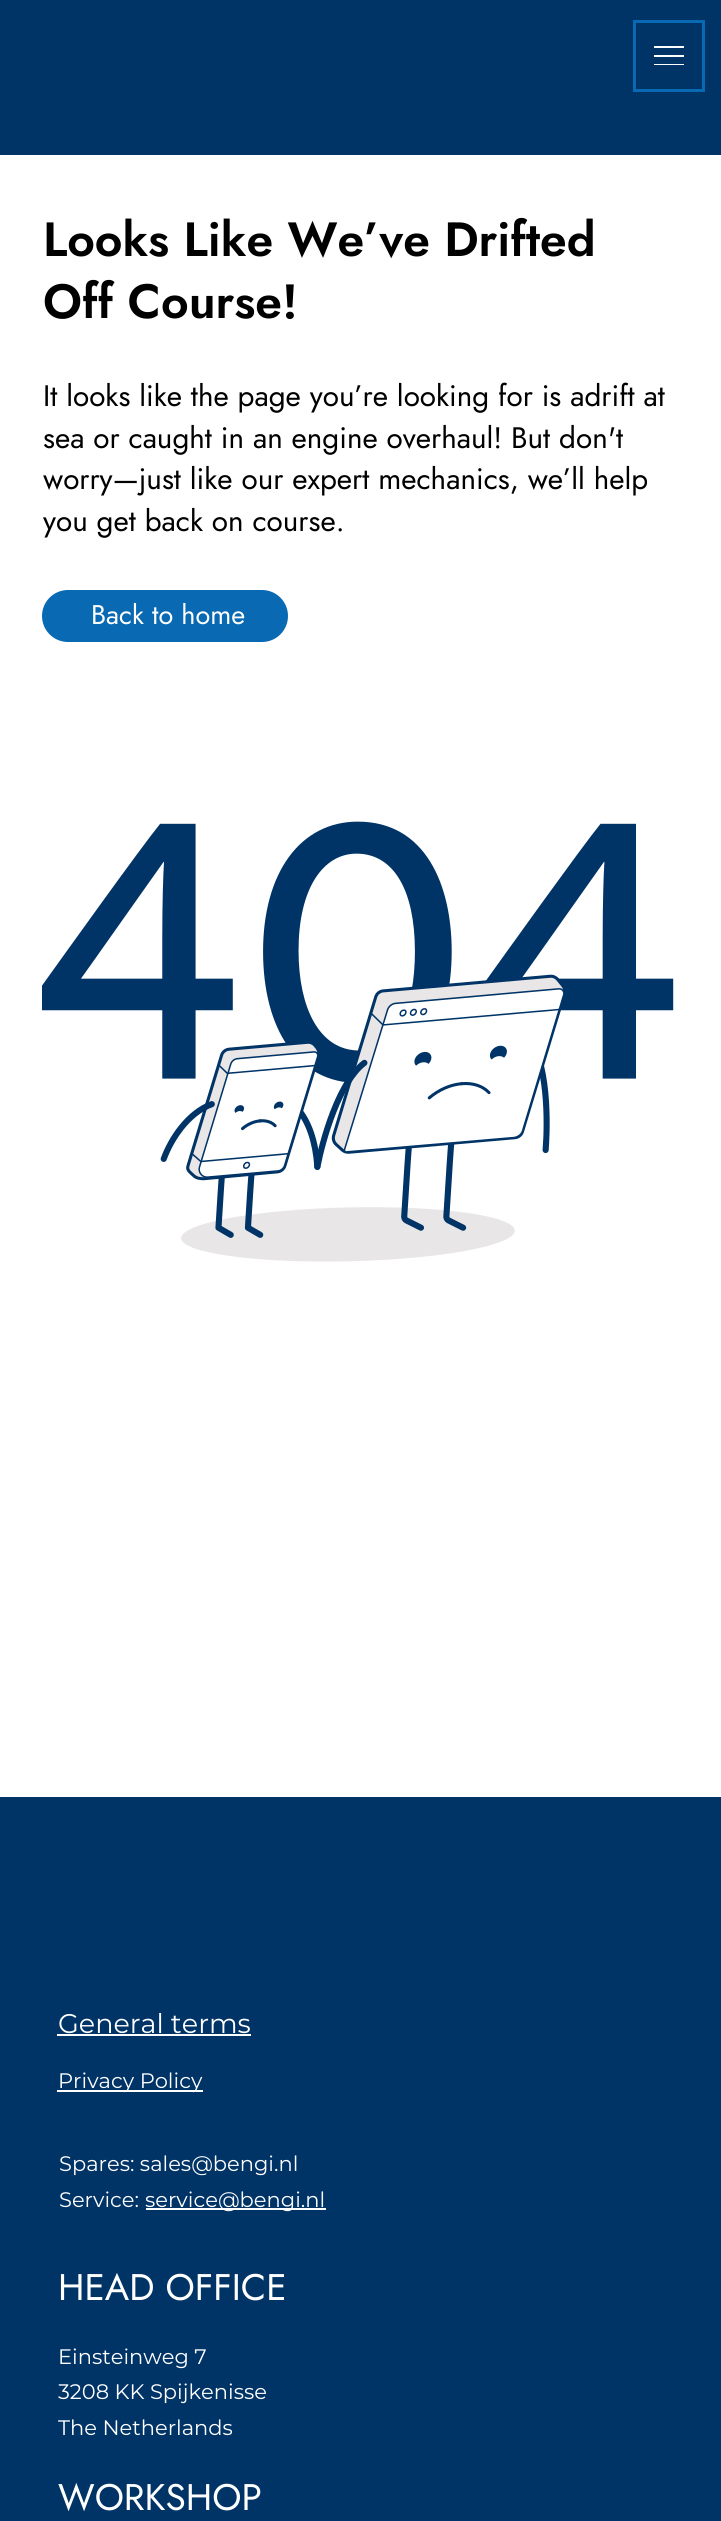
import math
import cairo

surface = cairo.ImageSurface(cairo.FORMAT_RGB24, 721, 2521)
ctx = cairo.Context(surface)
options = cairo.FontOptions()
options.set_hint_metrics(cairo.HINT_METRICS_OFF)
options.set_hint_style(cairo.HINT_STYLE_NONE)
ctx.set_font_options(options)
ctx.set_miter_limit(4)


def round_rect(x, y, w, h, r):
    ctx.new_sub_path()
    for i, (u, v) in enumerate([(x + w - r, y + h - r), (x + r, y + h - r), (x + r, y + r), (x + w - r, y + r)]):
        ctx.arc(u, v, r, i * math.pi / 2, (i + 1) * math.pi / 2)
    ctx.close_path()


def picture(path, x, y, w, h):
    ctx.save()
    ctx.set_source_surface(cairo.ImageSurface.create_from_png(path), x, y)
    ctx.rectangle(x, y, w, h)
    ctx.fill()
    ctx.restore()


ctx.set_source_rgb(1, 1, 1)
ctx.paint()
ctx.set_source_rgb(0, 0.2, 0.4)
ctx.rectangle(0, 0, 721, 155)
ctx.fill()
ctx.rectangle(634.5, 21.5, 69, 69)
ctx.set_source_rgb(0.039, 0.412, 0.702)
ctx.set_line_width(3)
ctx.stroke()
ctx.set_source_rgb(1, 1, 1)
ctx.rectangle(654, 46, 30, 2)
ctx.fill()
ctx.rectangle(654, 55, 30, 2)
ctx.fill()
ctx.rectangle(654, 64, 30, 1)
ctx.fill()
ctx.select_font_face("Jost SemiBold")
ctx.set_font_size(48)
ctx.set_source_rgb(0, 0, 0)
ctx.move_to(43, 256)
ctx.show_text("Looks Like We’ve Drifted")
ctx.move_to(43, 318)
ctx.show_text("Off Course!")
ctx.select_font_face("Jost")
ctx.set_font_size(29.6)
ctx.move_to(43, 406)
ctx.show_text("It looks like the page you’re looking for is adrift at")
ctx.move_to(43, 448)
ctx.show_text("sea or caught in an engine overhaul! But don't")
ctx.move_to(43, 489)
ctx.show_text("worry—just like our expert mechanics, we’ll help")
ctx.move_to(43, 531)
ctx.show_text("you get back on course.")
ctx.set_source_rgb(0.039, 0.412, 0.702)
round_rect(43, 591, 244, 50, 25)
ctx.fill_preserve()
ctx.set_line_width(2)
ctx.stroke()
ctx.set_font_size(27)
ctx.set_source_rgb(1, 1, 1)
ctx.move_to(91, 624)
ctx.show_text("Back to home")
picture("img1.png", 42, 821, 632, 441)
ctx.set_source_rgb(0, 0.2, 0.4)
ctx.rectangle(0, 1797, 721, 724)
ctx.fill()
ctx.select_font_face("Montserrat")
ctx.set_source_rgb(1, 1, 1)
ctx.move_to(58, 2033)
ctx.show_text("General terms")
ctx.rectangle(57, 2034, 194, 2)
ctx.fill()
ctx.rectangle(57, 2090, 146, 2)
ctx.fill()
ctx.set_font_size(21)
ctx.move_to(58, 2088)
ctx.show_text("Privacy Policy")
ctx.move_to(59, 2171)
ctx.show_text("Spares: sales@bengi.nl")
ctx.move_to(59, 2207)
ctx.show_text("Service:")
ctx.rectangle(146, 2208, 180, 2)
ctx.fill()
ctx.move_to(145, 2207)
ctx.show_text("service@bengi.nl")
ctx.select_font_face("Jost")
ctx.set_font_size(37)
ctx.move_to(58, 2300)
ctx.show_text("HEAD OFFICE")
ctx.select_font_face("Montserrat")
ctx.set_font_size(21)
ctx.move_to(58, 2364)
ctx.show_text("Einsteinweg 7")
ctx.move_to(58, 2399)
ctx.show_text("3208 KK Spijkenisse")
ctx.move_to(58, 2435)
ctx.show_text("The Netherlands")
ctx.select_font_face("Jost")
ctx.set_font_size(37)
ctx.move_to(58, 2510)
ctx.show_text("WORKSHOP")
surface.write_to_png("page.png")
